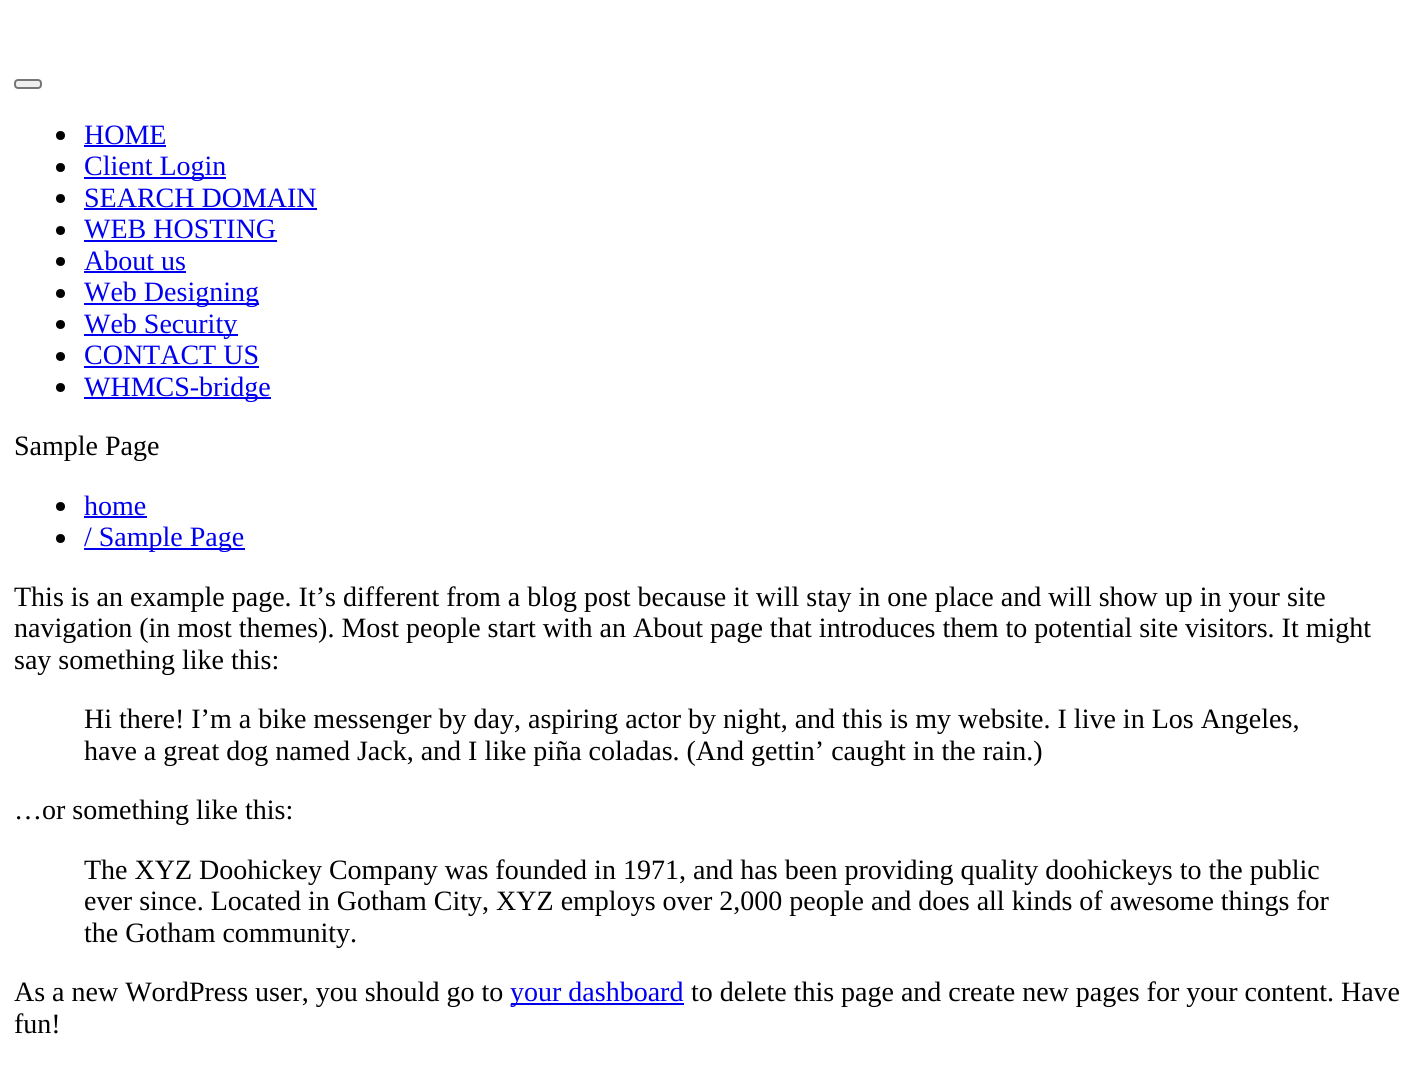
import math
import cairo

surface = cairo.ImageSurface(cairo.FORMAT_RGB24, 1423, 1084)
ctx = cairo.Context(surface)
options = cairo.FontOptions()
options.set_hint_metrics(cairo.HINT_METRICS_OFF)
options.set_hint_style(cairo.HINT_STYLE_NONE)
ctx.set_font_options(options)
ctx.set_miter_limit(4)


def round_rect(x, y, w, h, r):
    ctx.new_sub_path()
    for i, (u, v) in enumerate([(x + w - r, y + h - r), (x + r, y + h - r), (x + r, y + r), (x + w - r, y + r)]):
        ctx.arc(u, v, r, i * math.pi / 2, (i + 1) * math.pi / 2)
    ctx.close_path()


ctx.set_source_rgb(1, 1, 1)
ctx.paint()
ctx.set_source_rgb(0.937, 0.937, 0.937)
round_rect(15, 80, 26, 8, 3)
ctx.fill_preserve()
ctx.set_source_rgb(0.463, 0.463, 0.463)
ctx.stroke()
ctx.set_source_rgb(0, 0, 0)
ctx.arc(60.5, 135.5, 4.5, 0, 2 * math.pi)
ctx.fill()
ctx.select_font_face("Liberation Serif")
ctx.set_font_size(28)
ctx.set_source_rgb(0, 0, 0.933)
ctx.move_to(84, 144)
ctx.show_text("HOME")
ctx.rectangle(84, 145, 82, 2)
ctx.fill()
ctx.set_source_rgb(0, 0, 0)
ctx.arc(60.5, 167.5, 4.5, 0, 2 * math.pi)
ctx.fill()
ctx.set_source_rgb(0, 0, 0.933)
ctx.rectangle(84, 177, 142, 2)
ctx.fill()
ctx.move_to(84, 175)
ctx.show_text("Client Login")
ctx.set_source_rgb(0, 0, 0)
ctx.new_path()
ctx.arc(60.5, 198.5, 4.5, 0, 2 * math.pi)
ctx.fill()
ctx.set_source_rgb(0, 0, 0.933)
ctx.move_to(84, 207)
ctx.show_text("SEARCH DOMAIN")
ctx.rectangle(84, 208, 233, 2)
ctx.fill()
ctx.set_source_rgb(0, 0, 0)
ctx.arc(60.5, 230.5, 4.5, 0, 2 * math.pi)
ctx.fill()
ctx.set_source_rgb(0, 0, 0.933)
ctx.move_to(84, 238)
ctx.show_text("WEB HOSTING")
ctx.rectangle(84, 240, 193, 2)
ctx.fill()
ctx.set_source_rgb(0, 0, 0)
ctx.arc(60.5, 261.5, 4.5, 0, 2 * math.pi)
ctx.fill()
ctx.set_source_rgb(0, 0, 0.933)
ctx.move_to(84, 270)
ctx.show_text("About us")
ctx.rectangle(84, 271, 102, 2)
ctx.fill()
ctx.set_source_rgb(0, 0, 0)
ctx.arc(60.5, 293.5, 4.5, 0, 2 * math.pi)
ctx.fill()
ctx.set_source_rgb(0, 0, 0.933)
ctx.rectangle(84, 303, 175, 2)
ctx.fill()
ctx.move_to(84, 301)
ctx.show_text("Web Designing")
ctx.set_source_rgb(0, 0, 0)
ctx.new_path()
ctx.arc(60.5, 324.5, 4.5, 0, 2 * math.pi)
ctx.fill()
ctx.set_source_rgb(0, 0, 0.933)
ctx.rectangle(84, 334, 154, 2)
ctx.fill()
ctx.move_to(84, 333)
ctx.show_text("Web Security")
ctx.set_source_rgb(0, 0, 0)
ctx.new_path()
ctx.arc(60.5, 356.5, 4.5, 0, 2 * math.pi)
ctx.fill()
ctx.set_source_rgb(0, 0, 0.933)
ctx.move_to(84, 364)
ctx.show_text("CONTACT US")
ctx.rectangle(84, 366, 175, 2)
ctx.fill()
ctx.set_source_rgb(0, 0, 0)
ctx.arc(60.5, 387.5, 4.5, 0, 2 * math.pi)
ctx.fill()
ctx.set_source_rgb(0, 0, 0.933)
ctx.rectangle(84, 397, 187, 2)
ctx.fill()
ctx.move_to(84, 396)
ctx.show_text("WHMCS-bridge")
ctx.set_source_rgb(0, 0, 0)
ctx.move_to(14, 455)
ctx.show_text("Sample Page")
ctx.new_path()
ctx.arc(60.5, 506.5, 4.5, 0, 2 * math.pi)
ctx.fill()
ctx.set_source_rgb(0, 0, 0.933)
ctx.move_to(84, 515)
ctx.show_text("home")
ctx.rectangle(84, 516, 63, 2)
ctx.fill()
ctx.set_source_rgb(0, 0, 0)
ctx.arc(60.5, 538.5, 4.5, 0, 2 * math.pi)
ctx.fill()
ctx.set_source_rgb(0, 0, 0.933)
ctx.rectangle(84, 548, 161, 2)
ctx.fill()
ctx.move_to(84, 546)
ctx.show_text("/ Sample Page")
ctx.set_source_rgb(0, 0, 0)
ctx.move_to(14, 606)
ctx.show_text("This is an example page. It’s different from a blog post because it will stay in one place and will show up in your site")
ctx.move_to(14, 637)
ctx.show_text("navigation (in most themes). Most people start with an About page that introduces them to potential site visitors. It might")
ctx.move_to(14, 669)
ctx.show_text("say something like this:")
ctx.move_to(84, 728)
ctx.show_text("Hi there! I’m a bike messenger by day, aspiring actor by night, and this is my website. I live in Los Angeles,")
ctx.move_to(84, 760)
ctx.show_text("have a great dog named Jack, and I like piña coladas. (And gettin’ caught in the rain.)")
ctx.move_to(14, 819)
ctx.show_text("…or something like this:")
ctx.move_to(84, 879)
ctx.show_text("The XYZ Doohickey Company was founded in 1971, and has been providing quality doohickeys to the public")
ctx.move_to(84, 910)
ctx.show_text("ever since. Located in Gotham City, XYZ employs over 2,000 people and does all kinds of awesome things for")
ctx.move_to(84, 942)
ctx.show_text("the Gotham community.")
ctx.move_to(14, 1001)
ctx.show_text("As a new WordPress user, you should go to")
ctx.set_source_rgb(0, 0, 0.933)
ctx.rectangle(511, 1003, 173, 2)
ctx.fill()
ctx.move_to(510, 1001)
ctx.show_text("your dashboard")
ctx.set_source_rgb(0, 0, 0)
ctx.move_to(691, 1001)
ctx.show_text("to delete this page and create new pages for your content. Have")
ctx.move_to(14, 1033)
ctx.show_text("fun!")
surface.write_to_png("page.png")
